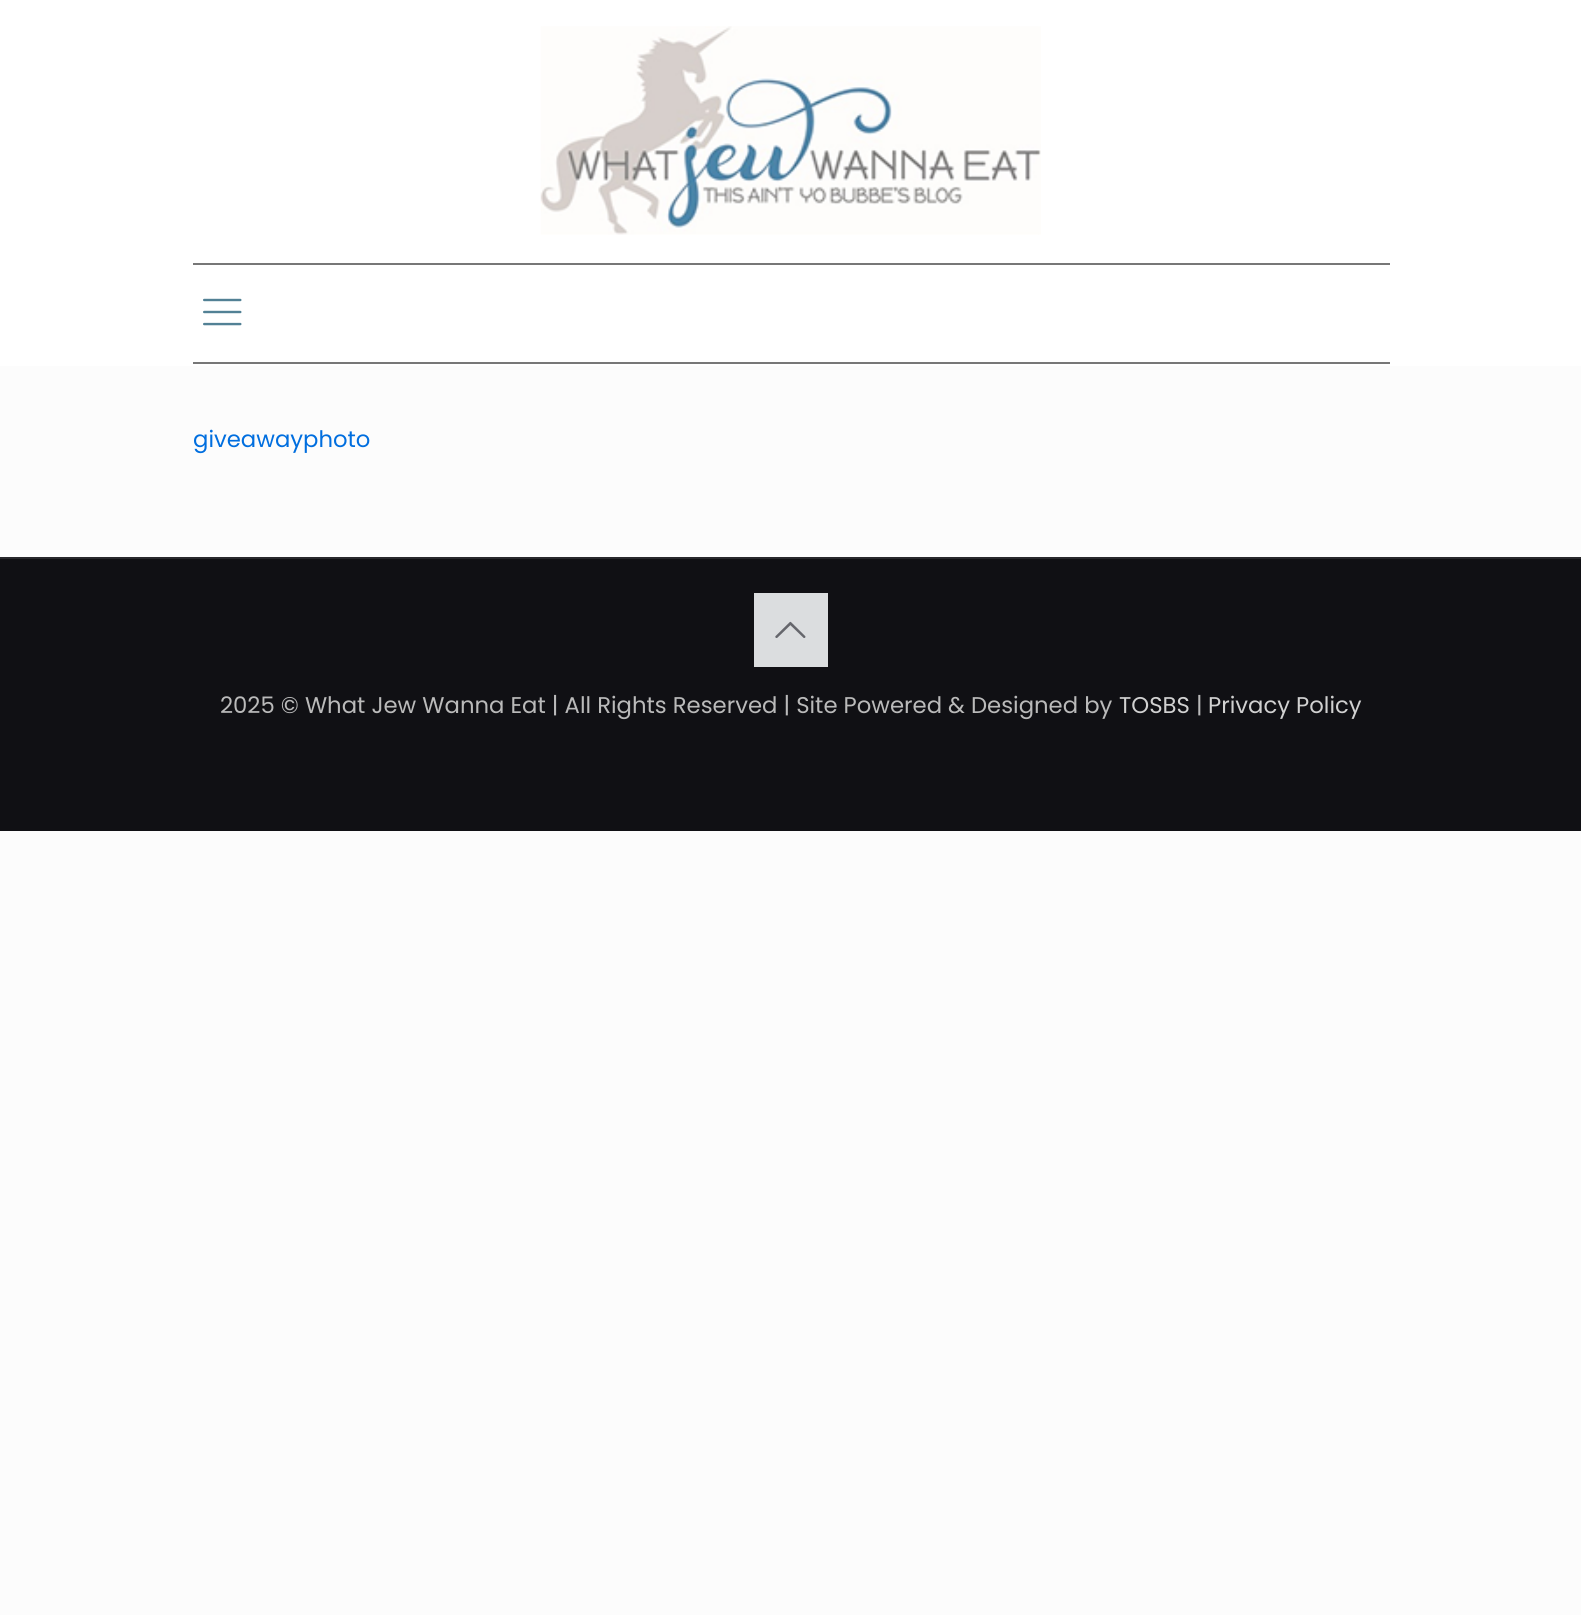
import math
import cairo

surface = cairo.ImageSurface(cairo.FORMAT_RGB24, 1581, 1615)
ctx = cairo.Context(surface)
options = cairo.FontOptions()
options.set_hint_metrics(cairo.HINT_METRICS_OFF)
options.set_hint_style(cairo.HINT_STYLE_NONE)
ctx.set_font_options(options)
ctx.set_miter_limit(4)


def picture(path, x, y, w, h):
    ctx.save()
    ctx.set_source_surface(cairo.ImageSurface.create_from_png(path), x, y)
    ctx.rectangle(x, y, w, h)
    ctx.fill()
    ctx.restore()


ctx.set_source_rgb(0.988, 0.988, 0.988)
ctx.paint()
ctx.set_source_rgb(1, 1, 1)
ctx.rectangle(0, 0, 1581, 366)
ctx.fill()
picture("img1.png", 540, 26, 501, 209)
ctx.set_source_rgb(0.467, 0.467, 0.467)
ctx.rectangle(193, 263, 1197, 2)
ctx.fill()
ctx.rectangle(193, 362, 1197, 2)
ctx.fill()
picture("img2.png", 203, 298, 39, 28)
ctx.select_font_face("Poppins")
ctx.set_font_size(22.75)
ctx.set_source_rgb(0, 0.431, 0.875)
ctx.move_to(193, 447)
ctx.show_text("giveawayphoto")
ctx.set_source_rgb(0.063, 0.063, 0.082)
ctx.rectangle(0, 559, 1581, 272)
ctx.fill()
ctx.set_source_rgb(0.157, 0.157, 0.173)
ctx.rectangle(0, 557, 1581, 2)
ctx.fill()
ctx.set_source_rgb(0.859, 0.867, 0.875)
ctx.rectangle(754, 593, 74, 74)
ctx.fill()
picture("img3.png", 775, 621, 31, 17)
ctx.set_source_rgb(0.729, 0.729, 0.729)
ctx.move_to(220, 713)
ctx.show_text("2025 © What Jew Wanna Eat | All Rights Reserved | Site Powered & Designed by")
ctx.set_source_rgb(0.82, 0.82, 0.82)
ctx.move_to(1119, 713)
ctx.show_text("TOSBS")
ctx.set_source_rgb(0.729, 0.729, 0.729)
ctx.move_to(1196, 713)
ctx.show_text("|")
ctx.set_source_rgb(0.82, 0.82, 0.82)
ctx.move_to(1208, 713)
ctx.show_text("Privacy Policy")
surface.write_to_png("page.png")
